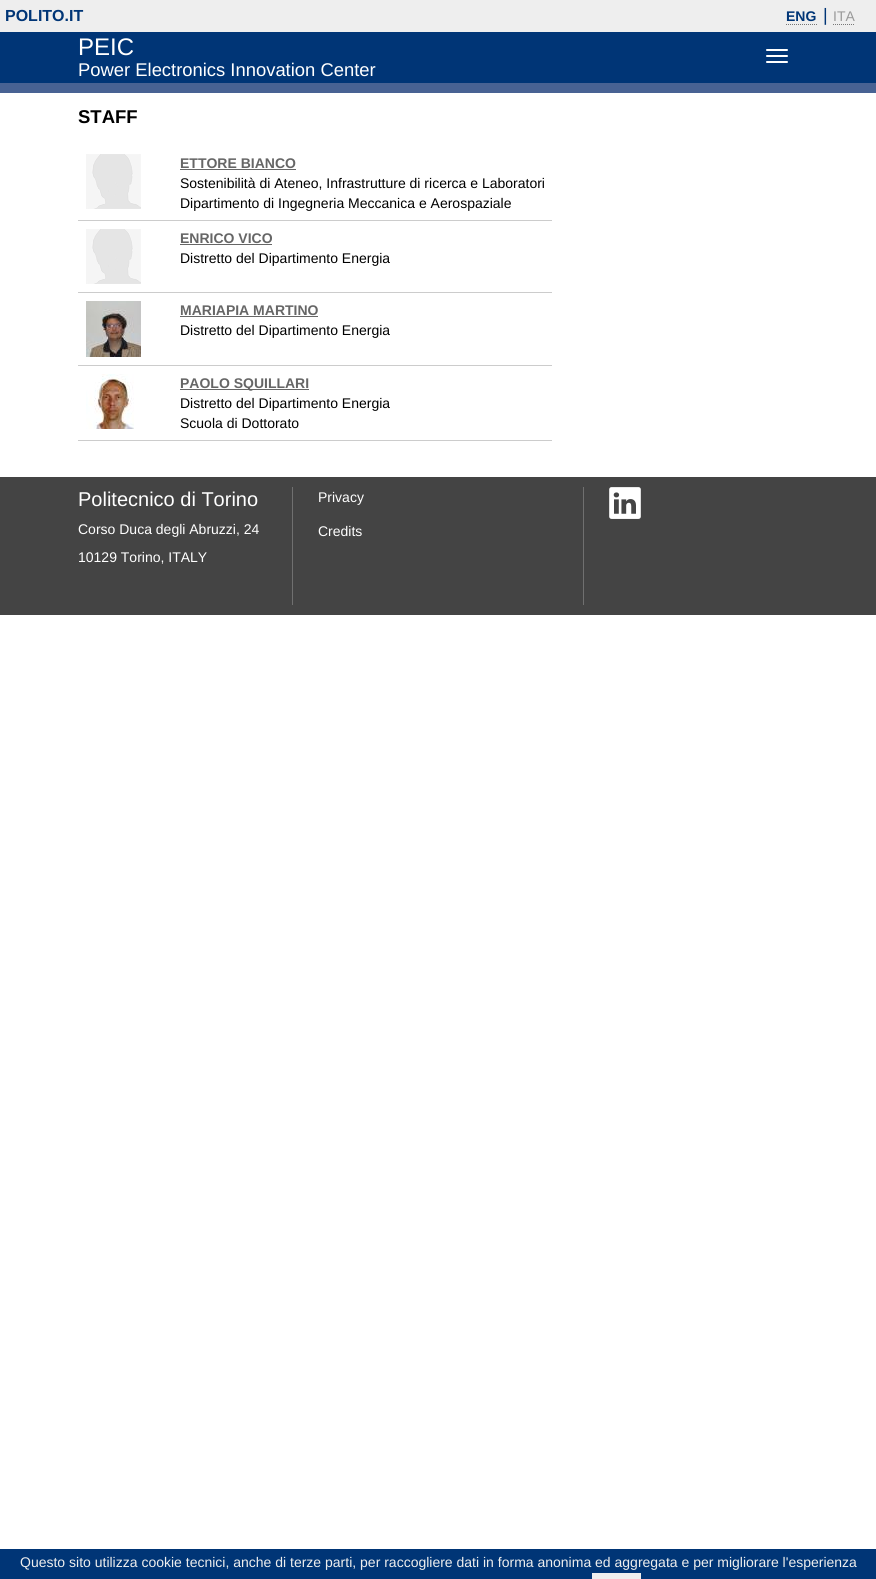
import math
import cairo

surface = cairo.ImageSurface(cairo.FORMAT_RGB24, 876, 1579)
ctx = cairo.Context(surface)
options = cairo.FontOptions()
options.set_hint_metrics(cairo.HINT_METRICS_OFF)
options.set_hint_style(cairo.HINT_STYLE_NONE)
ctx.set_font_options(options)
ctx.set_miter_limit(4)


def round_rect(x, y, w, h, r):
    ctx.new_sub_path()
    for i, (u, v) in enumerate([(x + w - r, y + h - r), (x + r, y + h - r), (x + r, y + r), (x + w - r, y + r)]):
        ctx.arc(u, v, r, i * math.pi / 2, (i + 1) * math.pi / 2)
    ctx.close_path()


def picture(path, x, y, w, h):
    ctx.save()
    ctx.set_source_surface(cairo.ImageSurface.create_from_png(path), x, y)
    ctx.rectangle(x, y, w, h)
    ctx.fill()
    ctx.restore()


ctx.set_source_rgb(1, 1, 1)
ctx.paint()
ctx.set_source_rgb(0.933, 0.933, 0.933)
ctx.rectangle(0, 0, 876, 32)
ctx.fill()
ctx.select_font_face("Liberation Sans", cairo.FONT_SLANT_NORMAL, cairo.FONT_WEIGHT_BOLD)
ctx.set_font_size(16)
ctx.set_source_rgb(0, 0.208, 0.463)
ctx.move_to(5, 21)
ctx.show_text("POLITO.IT")
ctx.set_font_size(14)
ctx.move_to(786, 21)
ctx.show_text("ENG")
ctx.new_path()
ctx.move_to(786, 24.5)
ctx.line_to(817, 24.5)
ctx.set_source_rgb(0.467, 0.467, 0.467)
ctx.set_line_width(1)
ctx.set_dash([1, 1])
ctx.stroke()
ctx.select_font_face("Liberation Sans")
ctx.set_font_size(18)
ctx.set_source_rgb(0, 0.208, 0.463)
ctx.move_to(823, 21)
ctx.show_text("|")
ctx.set_font_size(14)
ctx.set_source_rgb(0.6, 0.6, 0.6)
ctx.move_to(833, 21)
ctx.show_text("ITA")
ctx.new_path()
ctx.move_to(833, 24.5)
ctx.line_to(855, 24.5)
ctx.set_source_rgb(0.467, 0.467, 0.467)
ctx.stroke()
ctx.set_source_rgb(0, 0.208, 0.463)
ctx.rectangle(0, 32, 876, 51)
ctx.fill()
ctx.set_font_size(24)
ctx.set_source_rgb(1, 1, 1)
ctx.move_to(78, 55)
ctx.show_text("PEIC")
ctx.set_font_size(18.4)
ctx.move_to(78, 76)
ctx.show_text("Power Electronics Innovation Center")
round_rect(766, 49, 22, 2, 1)
ctx.fill()
round_rect(766, 55, 22, 2, 1)
ctx.fill()
round_rect(766, 61, 22, 2, 1)
ctx.fill()
ctx.set_source_rgb(0.282, 0.384, 0.576)
ctx.rectangle(0, 83, 876, 10)
ctx.fill()
ctx.select_font_face("Liberation Sans", cairo.FONT_SLANT_NORMAL, cairo.FONT_WEIGHT_BOLD)
ctx.set_font_size(18.5)
ctx.set_source_rgb(0, 0, 0)
ctx.move_to(78, 123)
ctx.show_text("STAFF")
picture("img1.png", 86, 154, 55, 55)
ctx.set_source_rgb(0.8, 0.8, 0.8)
ctx.rectangle(78, 220, 474, 1)
ctx.fill()
ctx.set_font_size(14)
ctx.set_source_rgb(0.4, 0.4, 0.4)
ctx.move_to(180, 168)
ctx.show_text("ETTORE BIANCO")
ctx.rectangle(180, 169, 116, 1)
ctx.fill()
ctx.select_font_face("Liberation Sans")
ctx.set_source_rgb(0, 0, 0)
ctx.move_to(180, 188)
ctx.show_text("Sostenibilità di Ateneo, Infrastrutture di ricerca e Laboratori")
ctx.move_to(180, 208)
ctx.show_text("Dipartimento di Ingegneria Meccanica e Aerospaziale")
picture("img1.png", 86, 229, 55, 55)
ctx.set_source_rgb(0.8, 0.8, 0.8)
ctx.rectangle(78, 292, 474, 1)
ctx.fill()
ctx.select_font_face("Liberation Sans", cairo.FONT_SLANT_NORMAL, cairo.FONT_WEIGHT_BOLD)
ctx.set_source_rgb(0.4, 0.4, 0.4)
ctx.move_to(180, 243)
ctx.show_text("ENRICO VICO")
ctx.rectangle(180, 244, 92, 1)
ctx.fill()
ctx.select_font_face("Liberation Sans")
ctx.set_source_rgb(0, 0, 0)
ctx.move_to(180, 263)
ctx.show_text("Distretto del Dipartimento Energia")
picture("img2.png", 86, 301, 55, 56)
ctx.set_source_rgb(0.8, 0.8, 0.8)
ctx.rectangle(78, 365, 474, 1)
ctx.fill()
ctx.select_font_face("Liberation Sans", cairo.FONT_SLANT_NORMAL, cairo.FONT_WEIGHT_BOLD)
ctx.set_source_rgb(0.4, 0.4, 0.4)
ctx.move_to(180, 315)
ctx.show_text("MARIAPIA MARTINO")
ctx.rectangle(180, 316, 138, 1)
ctx.fill()
ctx.select_font_face("Liberation Sans")
ctx.set_source_rgb(0, 0, 0)
ctx.move_to(180, 335)
ctx.show_text("Distretto del Dipartimento Energia")
picture("img3.png", 86, 374, 48, 55)
ctx.set_source_rgb(0.8, 0.8, 0.8)
ctx.rectangle(78, 440, 474, 1)
ctx.fill()
ctx.set_source_rgb(0.4, 0.4, 0.4)
ctx.rectangle(180, 389, 129, 1)
ctx.fill()
ctx.select_font_face("Liberation Sans", cairo.FONT_SLANT_NORMAL, cairo.FONT_WEIGHT_BOLD)
ctx.move_to(180, 388)
ctx.show_text("PAOLO SQUILLARI")
ctx.select_font_face("Liberation Sans")
ctx.set_source_rgb(0, 0, 0)
ctx.move_to(180, 408)
ctx.show_text("Distretto del Dipartimento Energia")
ctx.move_to(180, 428)
ctx.show_text("Scuola di Dottorato")
ctx.set_source_rgb(0.267, 0.267, 0.267)
ctx.rectangle(0, 477, 876, 138)
ctx.fill()
ctx.set_font_size(20)
ctx.set_source_rgb(1, 1, 1)
ctx.move_to(78, 506)
ctx.show_text("Politecnico di Torino")
ctx.set_font_size(14)
ctx.move_to(78, 534)
ctx.show_text("Corso Duca degli Abruzzi, 24")
ctx.move_to(78, 562)
ctx.show_text("10129 Torino, ITALY")
ctx.set_source_rgb(0.439, 0.439, 0.439)
ctx.rectangle(583, 487, 1, 118)
ctx.fill()
ctx.rectangle(292, 487, 1, 118)
ctx.fill()
ctx.set_source_rgb(1, 1, 1)
ctx.move_to(318, 502)
ctx.show_text("Privacy")
ctx.move_to(318, 536)
ctx.show_text("Credits")
picture("img4.png", 609, 487, 32, 32)
ctx.set_source_rgb(0, 0.208, 0.463)
ctx.rectangle(0, 1549, 876, 30)
ctx.fill()
ctx.set_source_rgb(0.933, 0.933, 0.933)
ctx.move_to(20, 1567)
ctx.show_text("Questo sito utilizza cookie tecnici, anche di terze parti, per raccogliere dati in forma anonima ed aggregata e per migliorare l'esperienza")
ctx.rectangle(592, 1573, 49, 6)
ctx.fill()
surface.write_to_png("page.png")
